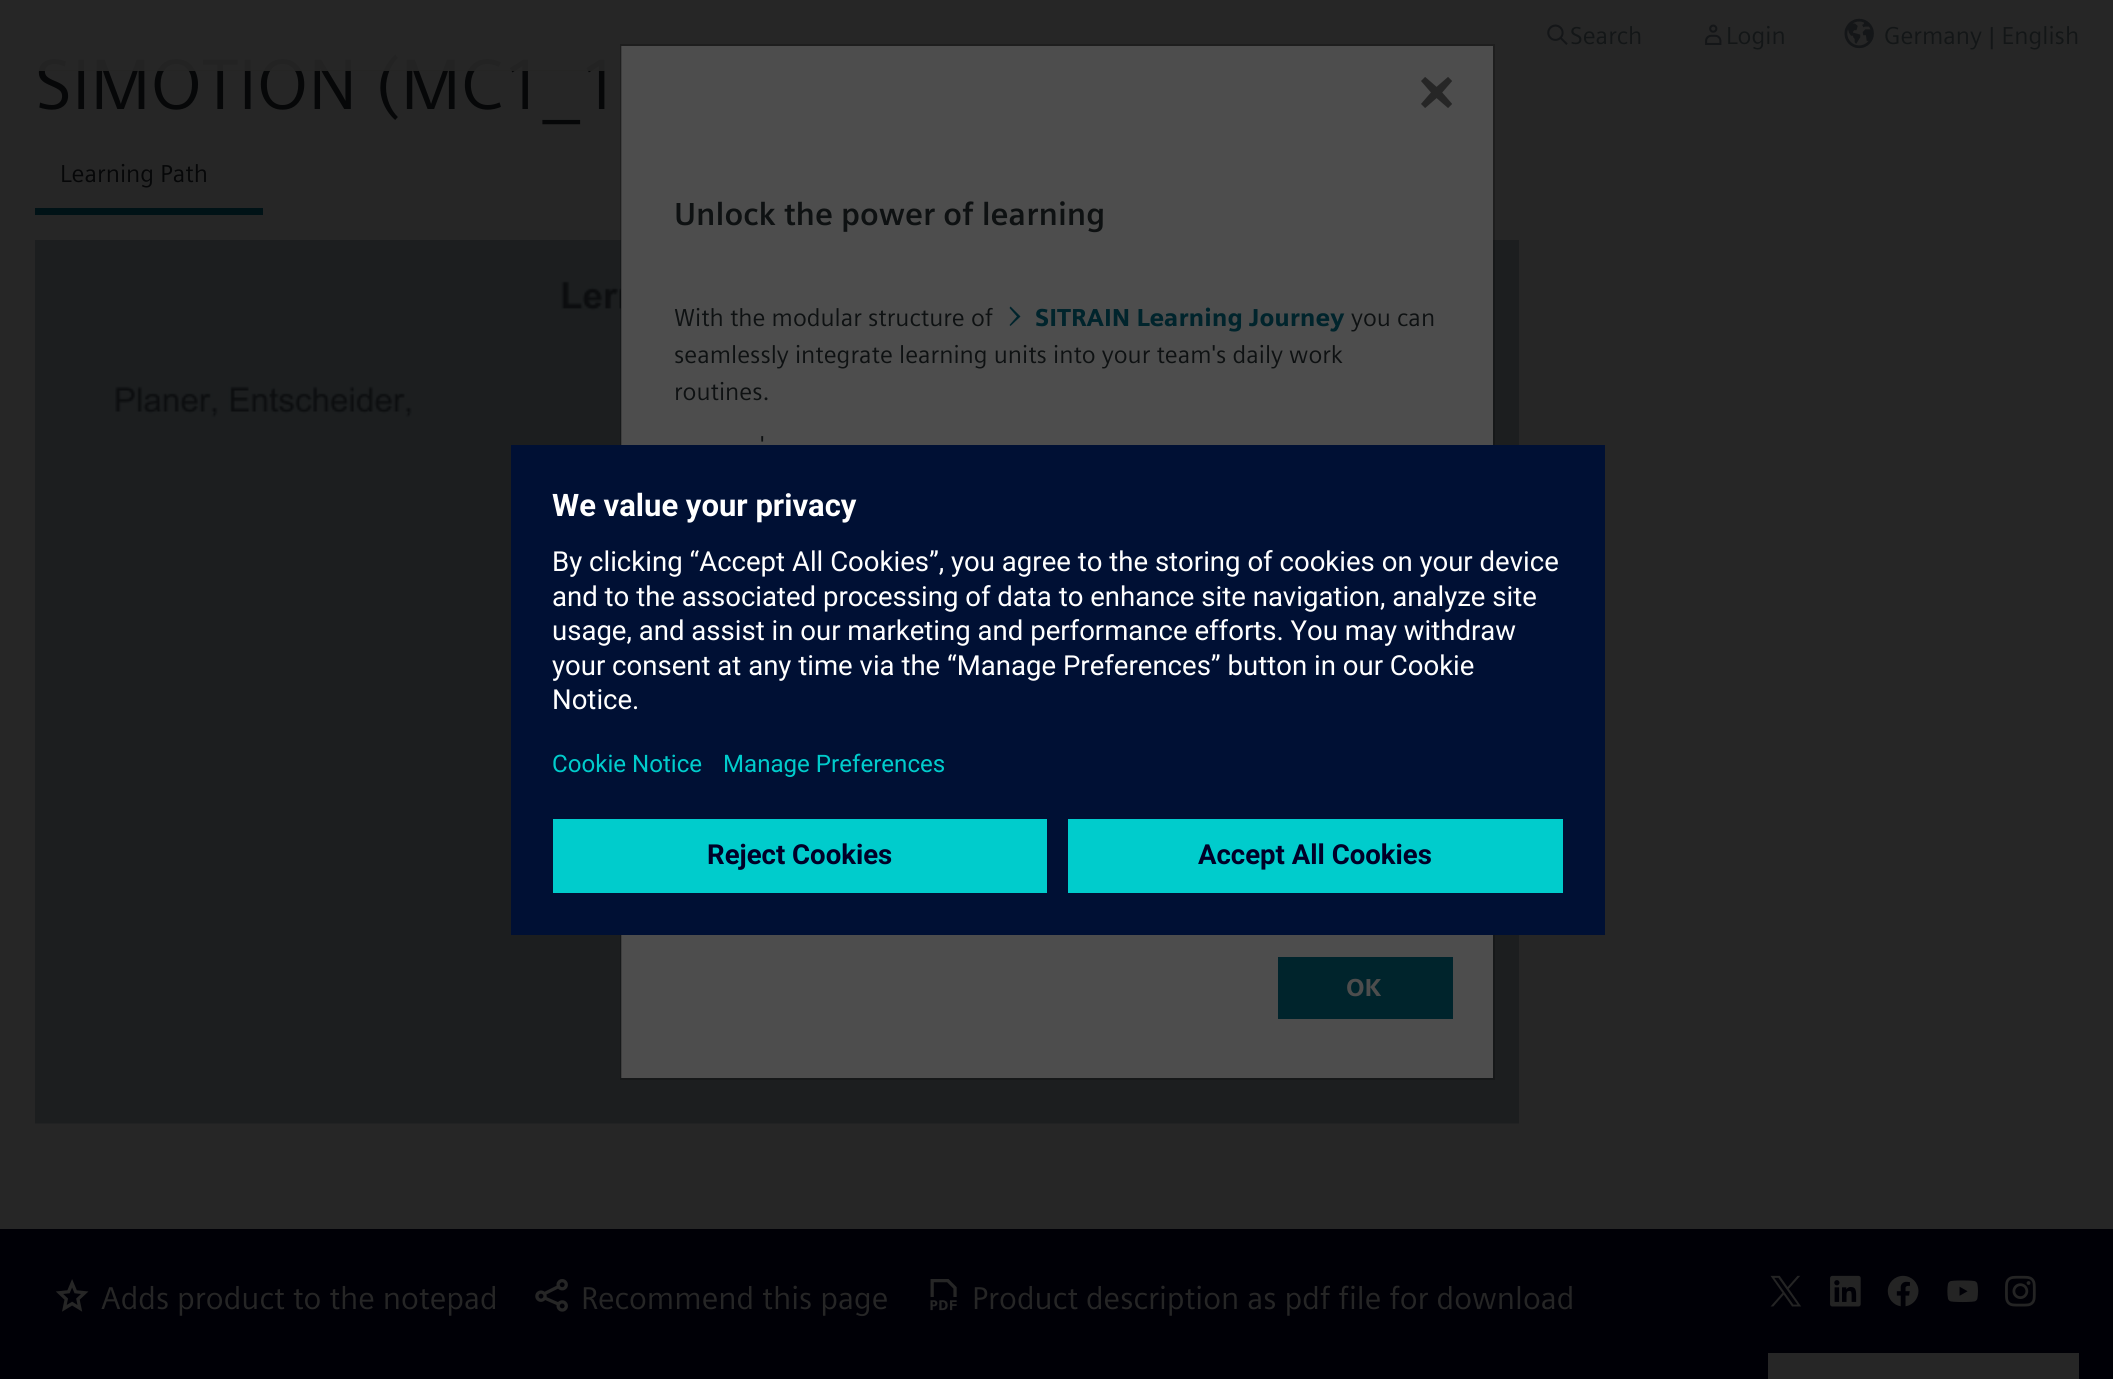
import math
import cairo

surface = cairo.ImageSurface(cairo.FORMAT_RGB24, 2113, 1379)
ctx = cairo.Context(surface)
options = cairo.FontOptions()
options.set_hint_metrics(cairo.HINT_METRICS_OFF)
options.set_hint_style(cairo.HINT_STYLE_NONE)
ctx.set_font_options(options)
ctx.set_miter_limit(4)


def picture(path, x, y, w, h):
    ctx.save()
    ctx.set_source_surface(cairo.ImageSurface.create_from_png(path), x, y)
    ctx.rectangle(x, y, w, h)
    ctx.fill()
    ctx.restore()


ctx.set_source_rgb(0.149, 0.149, 0.149)
ctx.paint()
ctx.select_font_face("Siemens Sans")
ctx.set_font_size(71)
ctx.set_source_rgb(0.027, 0.031, 0.035)
ctx.move_to(35, 109)
ctx.show_text("SIMOTION (MC1_1")
ctx.set_source_rgba(0.149, 0.149, 0.149, 0.9)
ctx.rectangle(39, 55, 566, 15)
ctx.fill()
ctx.set_source_rgba(0.145, 0.145, 0.141, 0.9)
ctx.rectangle(39, 70, 566, 1)
ctx.fill()
picture("img1.png", 1547, 24, 21, 21)
ctx.set_font_size(24.5)
ctx.set_source_rgb(0.078, 0.086, 0.09)
ctx.move_to(1570, 44)
ctx.show_text("Search")
picture("img2.png", 1705, 24, 17, 21)
ctx.move_to(1726, 44)
ctx.show_text("Login")
picture("img3.png", 1844, 18, 30, 31)
ctx.move_to(1884, 44)
ctx.show_text("Germany | English")
ctx.set_source_rgb(0, 0.071, 0.086)
ctx.rectangle(35, 208, 228, 7)
ctx.fill()
ctx.set_source_rgb(0.027, 0.031, 0.035)
ctx.move_to(60, 182)
ctx.show_text("Learning Path")
picture("img4.png", 35, 240, 1484, 884)
ctx.set_source_rgb(0.302, 0.302, 0.302)
ctx.rectangle(621, 46, 872, 1032)
ctx.fill()
ctx.rectangle(621, 45, 873, 1034)
ctx.set_source_rgba(0, 0, 0, 0.2)
ctx.stroke()
picture("img5.png", 1421, 77, 31, 31)
ctx.select_font_face("Siemens Sans", cairo.FONT_SLANT_NORMAL, cairo.FONT_WEIGHT_BOLD)
ctx.set_font_size(31.8)
ctx.set_source_rgb(0.055, 0.067, 0.071)
ctx.move_to(674, 225)
ctx.show_text("Unlock the power of learning")
ctx.select_font_face("Siemens Sans")
ctx.set_font_size(24.5)
ctx.move_to(674, 326)
ctx.show_text("With the modular structure of")
ctx.set_source_rgb(0, 0.141, 0.173)
ctx.new_path()
ctx.move_to(1020.5, 316.5)
ctx.line_to(1010.5, 306.5)
ctx.line_to(1009.5, 308)
ctx.line_to(1017, 316.5)
ctx.line_to(1009.5, 325)
ctx.line_to(1010.5, 326)
ctx.close_path()
ctx.fill()
ctx.select_font_face("Siemens Sans Black")
ctx.move_to(1035, 326)
ctx.show_text("SITRAIN Learning Journey")
ctx.select_font_face("Siemens Sans")
ctx.set_source_rgb(0.055, 0.067, 0.071)
ctx.move_to(1351, 326)
ctx.show_text("you can")
ctx.move_to(674, 363)
ctx.show_text("seamlessly integrate learning units into your team's daily work")
ctx.move_to(674, 400)
ctx.show_text("routines.")
ctx.move_to(760, 454)
ctx.show_text("'")
ctx.set_source_rgb(0, 0.141, 0.173)
ctx.rectangle(1278, 957, 175, 62)
ctx.fill()
ctx.select_font_face("Siemens Sans Black")
ctx.set_source_rgb(0.302, 0.302, 0.302)
ctx.move_to(1346, 996)
ctx.show_text("OK")
ctx.set_source_rgb(0, 0.063, 0.204)
ctx.rectangle(511, 445, 1094, 490)
ctx.fill()
ctx.select_font_face("Roboto", cairo.FONT_SLANT_NORMAL, cairo.FONT_WEIGHT_BOLD)
ctx.set_font_size(31)
ctx.set_source_rgb(1, 1, 1)
ctx.move_to(552, 516)
ctx.show_text("We value your privacy")
ctx.select_font_face("Roboto")
ctx.set_font_size(27.55)
ctx.move_to(552, 571)
ctx.show_text("By clicking “Accept All Cookies”, you agree to the storing of cookies on your device")
ctx.move_to(552, 606)
ctx.show_text("and to the associated processing of data to enhance site navigation, analyze site")
ctx.move_to(552, 640)
ctx.show_text("usage, and assist in our marketing and performance efforts. You may withdraw")
ctx.move_to(552, 675)
ctx.show_text("your consent at any time via the “Manage Preferences” button in our Cookie")
ctx.move_to(552, 709)
ctx.show_text("Notice.")
ctx.set_font_size(24.1)
ctx.set_source_rgb(0, 0.8, 0.8)
ctx.move_to(552, 772)
ctx.show_text("Cookie Notice")
ctx.move_to(723, 772)
ctx.show_text("Manage Preferences")
ctx.rectangle(553, 819, 494, 74)
ctx.fill()
ctx.select_font_face("Roboto", cairo.FONT_SLANT_NORMAL, cairo.FONT_WEIGHT_BOLD)
ctx.set_font_size(27.55)
ctx.set_source_rgb(0, 0, 0.157)
ctx.move_to(707, 864)
ctx.show_text("Reject Cookies")
ctx.set_source_rgb(0, 0.8, 0.8)
ctx.rectangle(1068, 819, 495, 74)
ctx.fill()
ctx.set_source_rgb(0, 0, 0.157)
ctx.move_to(1198, 864)
ctx.show_text("Accept All Cookies")
ctx.set_source_rgb(0, 0, 0.024)
ctx.rectangle(0, 1229, 2113, 150)
ctx.fill()
picture("img6.png", 55, 1279, 34, 33)
ctx.select_font_face("Siemens Sans")
ctx.set_font_size(31.5)
ctx.set_source_rgb(0.149, 0.149, 0.149)
ctx.move_to(101, 1309)
ctx.show_text("Adds product to the notepad")
picture("img7.png", 535, 1279, 33, 33)
ctx.move_to(581, 1309)
ctx.show_text("Recommend this page")
picture("img8.png", 930, 1279, 27, 32)
ctx.move_to(972, 1309)
ctx.show_text("Product description as pdf file for download")
picture("img9.png", 1770, 1275, 32, 32)
picture("img10.png", 1830, 1275, 31, 32)
picture("img11.png", 1887, 1275, 32, 32)
picture("img12.png", 1947, 1280, 31, 23)
picture("img13.png", 2005, 1275, 31, 32)
ctx.rectangle(1768, 1353, 311, 26)
ctx.fill()
surface.write_to_png("page.png")
